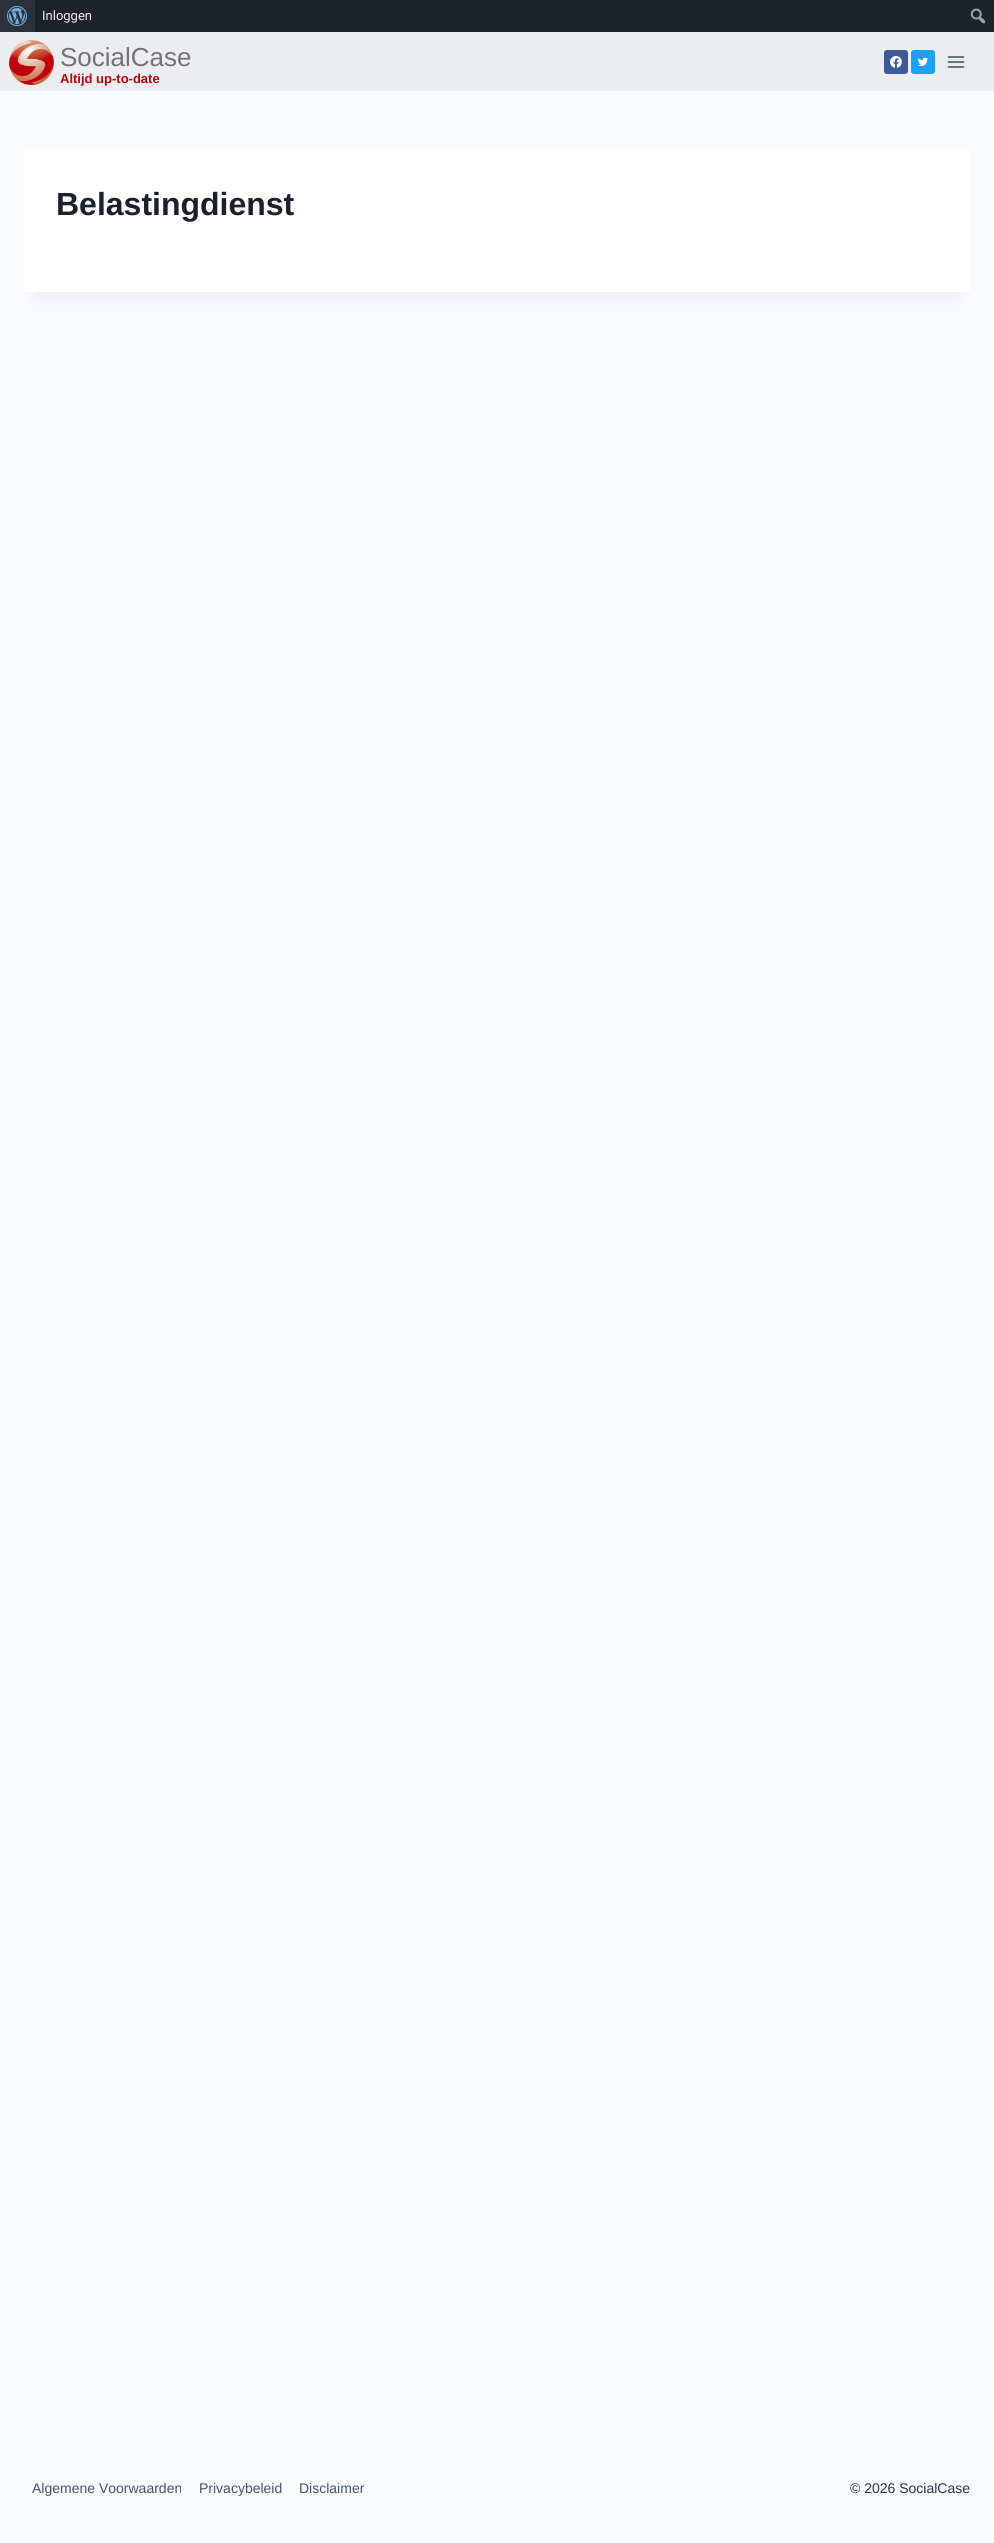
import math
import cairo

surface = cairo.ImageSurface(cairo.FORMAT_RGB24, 994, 2543)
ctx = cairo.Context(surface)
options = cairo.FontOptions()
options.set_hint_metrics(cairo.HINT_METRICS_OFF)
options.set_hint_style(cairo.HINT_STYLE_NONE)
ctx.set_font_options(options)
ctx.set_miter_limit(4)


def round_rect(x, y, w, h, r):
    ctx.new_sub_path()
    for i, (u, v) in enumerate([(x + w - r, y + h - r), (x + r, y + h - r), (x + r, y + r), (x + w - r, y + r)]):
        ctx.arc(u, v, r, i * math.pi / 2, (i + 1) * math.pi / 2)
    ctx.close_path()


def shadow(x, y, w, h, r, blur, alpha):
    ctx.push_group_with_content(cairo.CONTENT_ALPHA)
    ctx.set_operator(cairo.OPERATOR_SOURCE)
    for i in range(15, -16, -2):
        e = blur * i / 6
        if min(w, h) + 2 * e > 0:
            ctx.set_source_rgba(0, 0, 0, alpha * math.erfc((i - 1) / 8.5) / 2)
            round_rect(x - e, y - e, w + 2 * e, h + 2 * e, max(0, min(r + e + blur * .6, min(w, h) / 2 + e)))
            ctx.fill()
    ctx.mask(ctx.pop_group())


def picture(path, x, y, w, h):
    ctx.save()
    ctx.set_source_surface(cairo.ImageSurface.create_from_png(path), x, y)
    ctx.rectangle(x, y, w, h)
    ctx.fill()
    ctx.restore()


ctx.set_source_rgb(0.969, 0.98, 0.988)
ctx.paint()
ctx.set_source_rgb(0.114, 0.137, 0.153)
ctx.rectangle(35, 0, 959, 32)
ctx.fill()
ctx.set_source_rgb(0.173, 0.2, 0.22)
ctx.rectangle(0, 0, 35, 32)
ctx.fill()
picture("img1.png", 7, 6, 20, 20)
ctx.select_font_face("Roboto")
ctx.set_font_size(13)
ctx.set_source_rgb(0.941, 0.941, 0.945)
ctx.move_to(42, 20)
ctx.show_text("Inloggen")
picture("img2.png", 970, 8, 16, 16)
ctx.set_source_rgb(0.918, 0.929, 0.937)
ctx.rectangle(0, 32, 994, 59)
ctx.fill()
picture("img3.png", 9, 40, 45, 45)
ctx.select_font_face("Arimo")
ctx.set_font_size(26)
ctx.set_source_rgb(0.455, 0.451, 0.475)
ctx.move_to(60, 66)
ctx.show_text("SocialCase")
ctx.select_font_face("Arimo", cairo.FONT_SLANT_NORMAL, cairo.FONT_WEIGHT_BOLD)
ctx.set_font_size(13)
ctx.set_source_rgb(0.749, 0.008, 0.051)
ctx.move_to(60, 83)
ctx.show_text("Altijd up-to-date")
ctx.set_source_rgb(0.231, 0.349, 0.596)
round_rect(884, 50, 24, 24, 3)
ctx.fill()
picture("img4.png", 890, 56, 12, 12)
ctx.set_source_rgb(0.114, 0.631, 0.949)
round_rect(911, 50, 24, 24, 3)
ctx.fill()
picture("img5.png", 918, 57, 10, 10)
picture("img6.png", 947, 56, 18, 12)
ctx.set_source_rgb(0, 0, 0)
shadow(34, 173, 926, 124, 0, 7.5, 0.05)
ctx.set_source_rgb(1, 1, 1)
round_rect(24, 148, 946, 144, 4)
ctx.fill()
ctx.set_font_size(32)
ctx.set_source_rgb(0.102, 0.125, 0.173)
ctx.move_to(56, 215)
ctx.show_text("Belastingdienst")
ctx.select_font_face("Arimo")
ctx.set_font_size(14)
ctx.set_source_rgb(0.29, 0.333, 0.408)
ctx.move_to(32, 2493)
ctx.show_text("Algemene Voorwaarden")
ctx.move_to(199, 2493)
ctx.show_text("Privacybeleid")
ctx.move_to(299, 2493)
ctx.show_text("Disclaimer")
ctx.set_source_rgb(0.176, 0.216, 0.282)
ctx.move_to(850, 2493)
ctx.show_text("© 2026 SocialCase")
surface.write_to_png("page.png")
